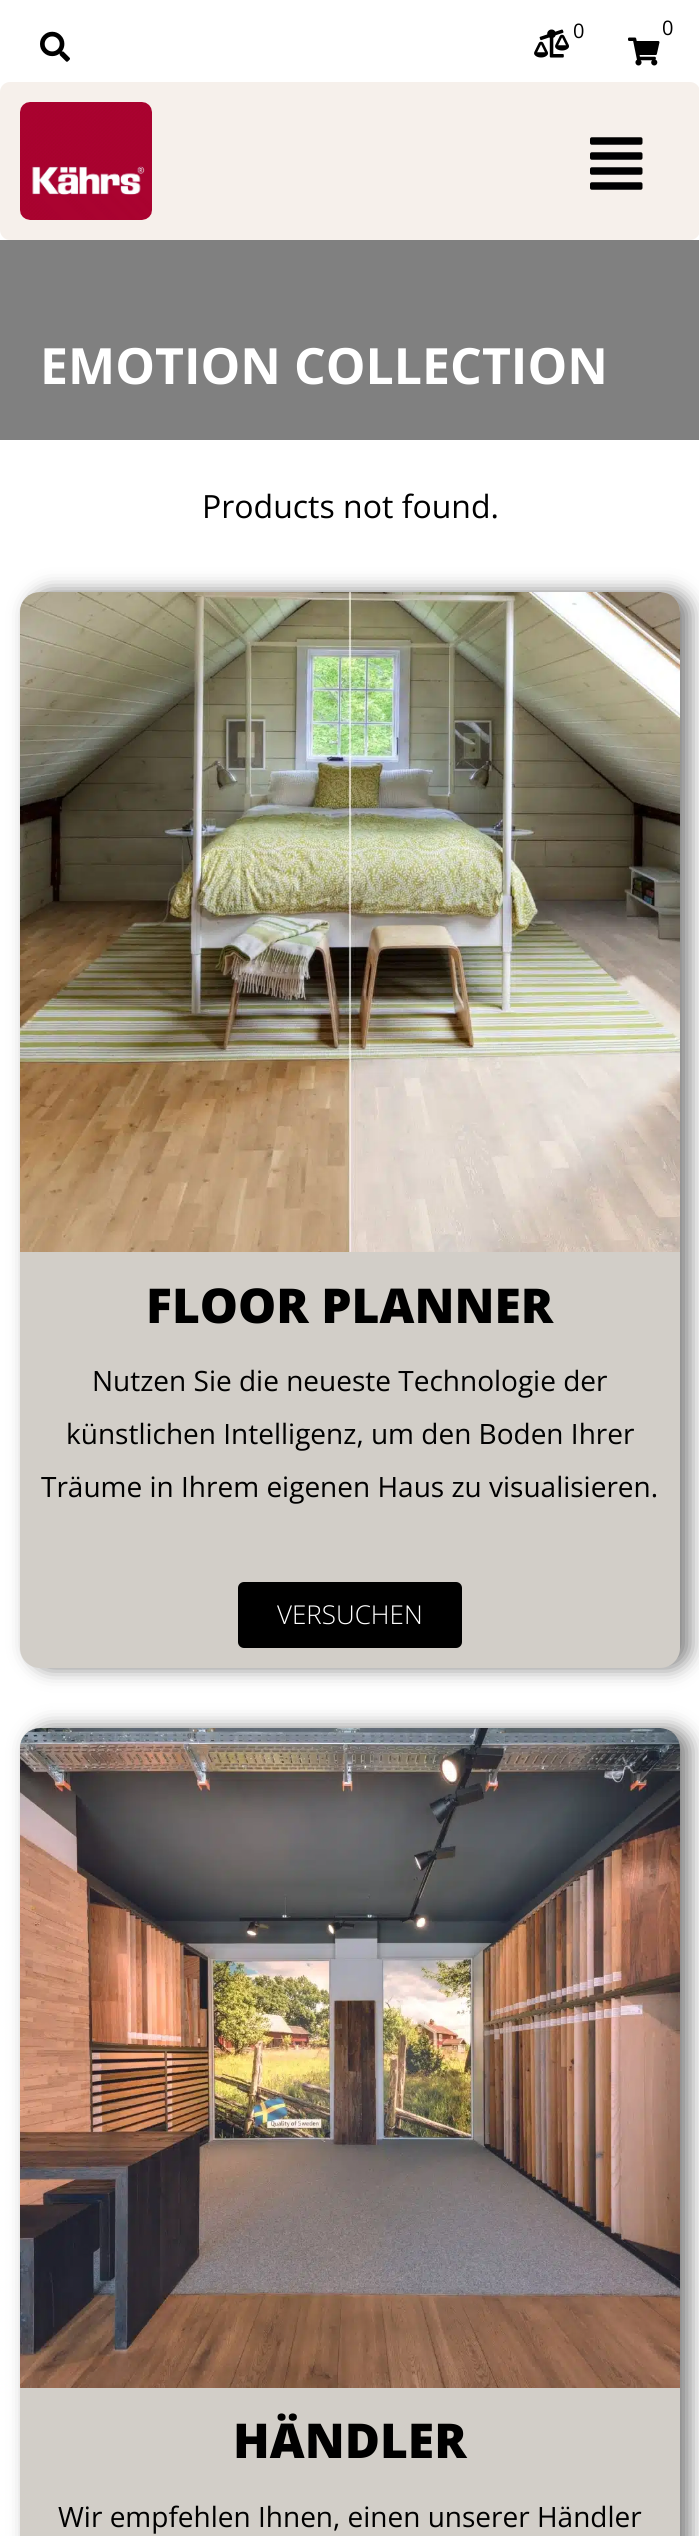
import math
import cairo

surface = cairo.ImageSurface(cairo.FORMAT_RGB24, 699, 2536)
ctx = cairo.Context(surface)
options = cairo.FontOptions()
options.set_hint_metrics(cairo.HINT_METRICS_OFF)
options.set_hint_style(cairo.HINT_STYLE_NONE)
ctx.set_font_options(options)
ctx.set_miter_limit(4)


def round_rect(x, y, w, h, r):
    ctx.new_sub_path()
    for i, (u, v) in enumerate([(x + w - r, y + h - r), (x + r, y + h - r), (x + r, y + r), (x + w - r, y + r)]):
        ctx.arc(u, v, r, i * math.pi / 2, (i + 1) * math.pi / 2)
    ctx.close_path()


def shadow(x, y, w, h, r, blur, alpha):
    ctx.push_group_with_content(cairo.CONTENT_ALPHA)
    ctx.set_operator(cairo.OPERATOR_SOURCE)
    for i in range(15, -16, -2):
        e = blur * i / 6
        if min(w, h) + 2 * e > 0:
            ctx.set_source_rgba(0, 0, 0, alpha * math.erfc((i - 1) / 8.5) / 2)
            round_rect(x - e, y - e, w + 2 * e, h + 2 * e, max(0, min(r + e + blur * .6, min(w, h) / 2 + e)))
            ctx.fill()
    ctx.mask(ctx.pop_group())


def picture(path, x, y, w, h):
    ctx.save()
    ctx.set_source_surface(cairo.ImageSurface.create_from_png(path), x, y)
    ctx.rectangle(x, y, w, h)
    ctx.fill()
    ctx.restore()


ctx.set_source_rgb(1, 1, 1)
ctx.paint()
picture("img1.png", 40, 31, 30, 31)
picture("img2.png", 534, 29, 35, 29)
ctx.select_font_face("Open Sans")
ctx.set_font_size(20)
ctx.set_source_rgb(0, 0, 0)
ctx.move_to(573, 38)
ctx.show_text("0")
ctx.move_to(662, 35)
ctx.show_text("0")
picture("img3.png", 628, 37, 32, 29)
ctx.set_source_rgb(0.961, 0.941, 0.918)
round_rect(0, 82, 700, 158, 10)
ctx.fill()
picture("img4.png", 20, 102, 132, 118)
picture("img5.png", 590, 137, 53, 53)
ctx.set_source_rgb(0.502, 0.502, 0.502)
ctx.rectangle(0, 240, 699, 200)
ctx.fill()
ctx.select_font_face("Open Sans", cairo.FONT_SLANT_NORMAL, cairo.FONT_WEIGHT_BOLD)
ctx.set_font_size(50)
ctx.set_source_rgb(1, 1, 1)
ctx.move_to(40, 384)
ctx.show_text("EMOTION COLLECTION")
ctx.select_font_face("Open Sans")
ctx.set_font_size(32)
ctx.set_source_rgb(0, 0, 0)
ctx.move_to(202, 518)
ctx.show_text("Products not found.")
ctx.set_source_rgb(0, 0, 0)
shadow(30, 592, 660, 1076, 20, 10, 0.5)
ctx.set_source_rgb(0.824, 0.808, 0.784)
round_rect(20, 592, 660, 1076, 20)
ctx.fill()
picture("img6.png", 20, 592, 660, 660)
ctx.select_font_face("Open Sans ExtraBold")
ctx.set_font_size(48)
ctx.set_source_rgb(0, 0, 0)
ctx.move_to(146, 1323)
ctx.show_text("FLOOR PLANNER")
ctx.select_font_face("Open Sans")
ctx.set_font_size(28)
ctx.move_to(92, 1391)
ctx.show_text("Nutzen Sie die neueste Technologie der")
ctx.move_to(66, 1444)
ctx.show_text("künstlichen Intelligenz, um den Boden Ihrer")
ctx.move_to(41, 1497)
ctx.show_text("Träume in Ihrem eigenen Haus zu visualisieren.")
round_rect(238, 1582, 224, 66, 6)
ctx.fill()
ctx.select_font_face("Open Sans Light")
ctx.set_font_size(26)
ctx.set_source_rgb(1, 1, 1)
ctx.move_to(277, 1624)
ctx.show_text("VERSUCHEN")
ctx.set_source_rgb(0, 0, 0)
shadow(30, 1728, 660, 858, 20, 10, 0.5)
ctx.set_source_rgb(0.824, 0.808, 0.784)
round_rect(20, 1728, 660, 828, 20)
ctx.fill()
picture("img7.png", 20, 1728, 660, 660)
ctx.select_font_face("Open Sans ExtraBold")
ctx.set_font_size(48)
ctx.set_source_rgb(0, 0, 0)
ctx.move_to(233, 2458)
ctx.show_text("HÄNDLER")
ctx.select_font_face("Open Sans")
ctx.set_font_size(28)
ctx.move_to(58, 2527)
ctx.show_text("Wir empfehlen Ihnen, einen unserer Händler")
surface.write_to_png("page.png")
